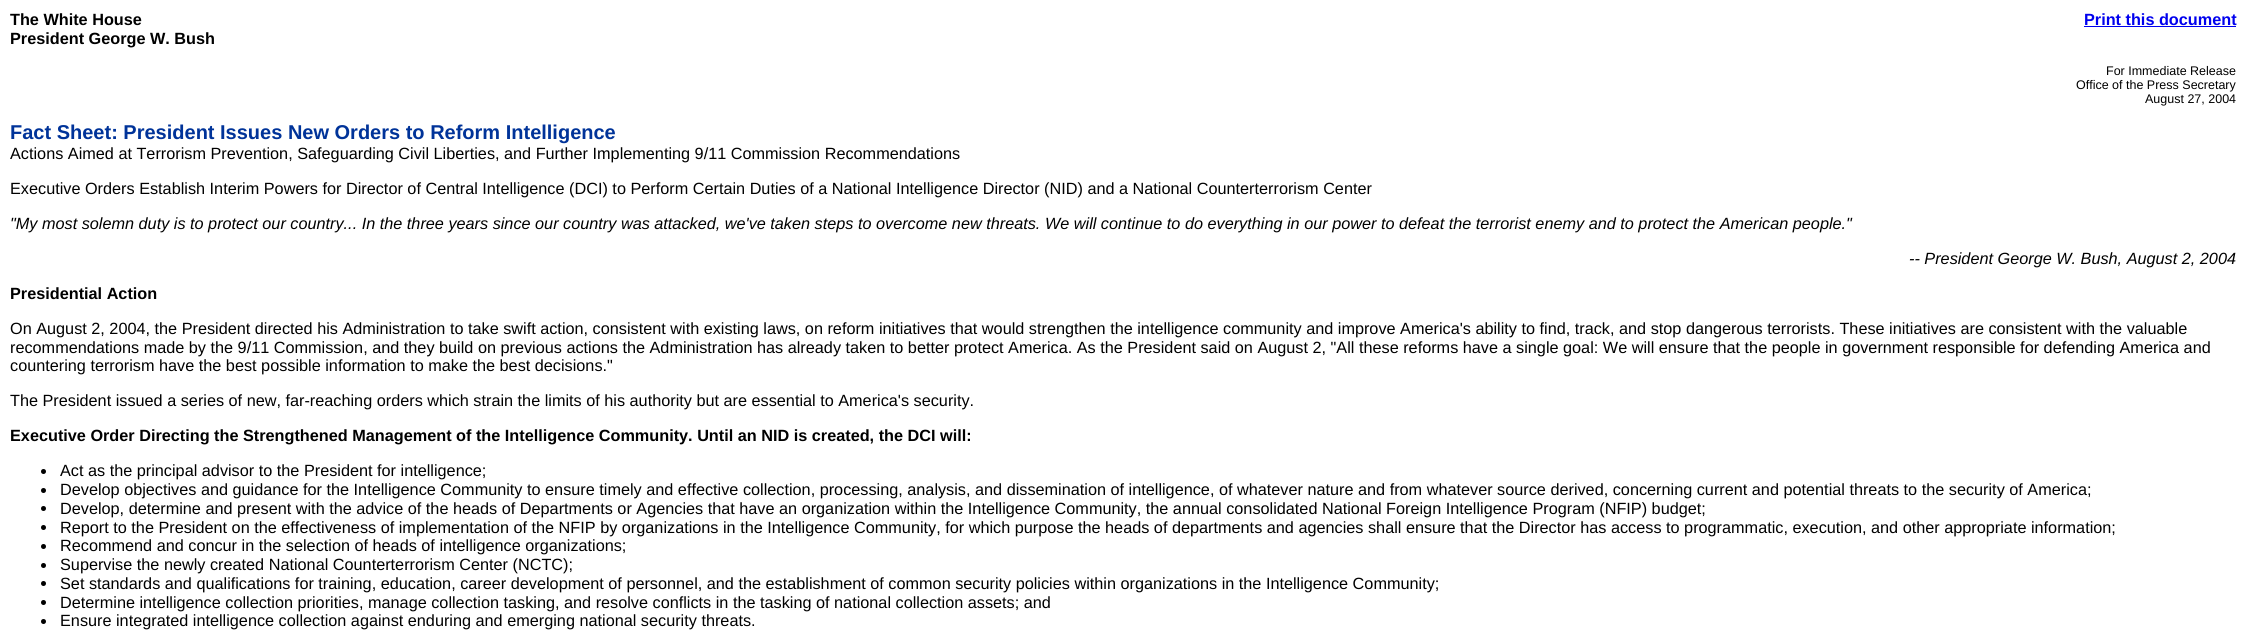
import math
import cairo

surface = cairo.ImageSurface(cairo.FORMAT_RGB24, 2246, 640)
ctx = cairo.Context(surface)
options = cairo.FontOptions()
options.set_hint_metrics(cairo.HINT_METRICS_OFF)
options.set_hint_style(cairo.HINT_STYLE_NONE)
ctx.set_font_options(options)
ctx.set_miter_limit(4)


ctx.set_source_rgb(1, 1, 1)
ctx.paint()
ctx.select_font_face("Liberation Sans", cairo.FONT_SLANT_NORMAL, cairo.FONT_WEIGHT_BOLD)
ctx.set_font_size(16.25)
ctx.set_source_rgb(0, 0, 0)
ctx.move_to(10, 25)
ctx.show_text("The White House")
ctx.move_to(10, 44)
ctx.show_text("President George W. Bush")
ctx.set_source_rgb(0, 0, 0.933)
ctx.move_to(2084, 25)
ctx.show_text("Print this document")
ctx.rectangle(2084, 26, 152, 1)
ctx.fill()
ctx.select_font_face("Liberation Sans")
ctx.set_font_size(12.5)
ctx.set_source_rgb(0, 0, 0)
ctx.move_to(2106, 75)
ctx.show_text("For Immediate Release")
ctx.move_to(2076, 89)
ctx.show_text("Office of the Press Secretary")
ctx.move_to(2145, 103)
ctx.show_text("August 27, 2004")
ctx.select_font_face("Liberation Sans", cairo.FONT_SLANT_NORMAL, cairo.FONT_WEIGHT_BOLD)
ctx.set_font_size(20)
ctx.set_source_rgb(0, 0.2, 0.6)
ctx.move_to(10, 139)
ctx.show_text("Fact Sheet: President Issues New Orders to Reform Intelligence")
ctx.select_font_face("Liberation Sans")
ctx.set_font_size(16.25)
ctx.set_source_rgb(0, 0, 0)
ctx.move_to(10, 159)
ctx.show_text("Actions Aimed at Terrorism Prevention, Safeguarding Civil Liberties, and Further Implementing 9/11 Commission Recommendations")
ctx.move_to(10, 194)
ctx.show_text("Executive Orders Establish Interim Powers for Director of Central Intelligence (DCI) to Perform Certain Duties of a National Intelligence Director (NID) and a National Counterterrorism Center")
ctx.select_font_face("Liberation Sans", cairo.FONT_SLANT_ITALIC)
ctx.move_to(10, 229)
ctx.show_text("\"My most solemn duty is to protect our country... In the three years since our country was attacked, we've taken steps to overcome new threats. We will continue to do everything in our power to defeat the terrorist enemy and to protect the American people.\"")
ctx.move_to(1909, 264)
ctx.show_text("-- President George W. Bush, August 2, 2004")
ctx.select_font_face("Liberation Sans", cairo.FONT_SLANT_NORMAL, cairo.FONT_WEIGHT_BOLD)
ctx.move_to(10, 299)
ctx.show_text("Presidential Action")
ctx.select_font_face("Liberation Sans")
ctx.move_to(10, 334)
ctx.show_text("On August 2, 2004, the President directed his Administration to take swift action, consistent with existing laws, on reform initiatives that would strengthen the intelligence community and improve America's ability to find, track, and stop dangerous terrorists. These initiatives are consistent with the valuable")
ctx.move_to(10, 353)
ctx.show_text("recommendations made by the 9/11 Commission, and they build on previous actions the Administration has already taken to better protect America. As the President said on August 2, \"All these reforms have a single goal: We will ensure that the people in government responsible for defending America and")
ctx.move_to(10, 371)
ctx.show_text("countering terrorism have the best possible information to make the best decisions.\"")
ctx.move_to(10, 406)
ctx.show_text("The President issued a series of new, far-reaching orders which strain the limits of his authority but are essential to America's security.")
ctx.select_font_face("Liberation Sans", cairo.FONT_SLANT_NORMAL, cairo.FONT_WEIGHT_BOLD)
ctx.move_to(10, 441)
ctx.show_text("Executive Order Directing the Strengthened Management of the Intelligence Community. Until an NID is created, the DCI will:")
ctx.new_path()
ctx.arc(43.5, 471.5, 2.5, 0, 2 * math.pi)
ctx.fill()
ctx.select_font_face("Liberation Sans")
ctx.move_to(60, 476)
ctx.show_text("Act as the principal advisor to the President for intelligence;")
ctx.new_path()
ctx.arc(43.5, 490.5, 2.5, 0, 2 * math.pi)
ctx.fill()
ctx.move_to(60, 495)
ctx.show_text("Develop objectives and guidance for the Intelligence Community to ensure timely and effective collection, processing, analysis, and dissemination of intelligence, of whatever nature and from whatever source derived, concerning current and potential threats to the security of America;")
ctx.new_path()
ctx.arc(43.5, 508.5, 2.5, 0, 2 * math.pi)
ctx.fill()
ctx.move_to(60, 514)
ctx.show_text("Develop, determine and present with the advice of the heads of Departments or Agencies that have an organization within the Intelligence Community, the annual consolidated National Foreign Intelligence Program (NFIP) budget;")
ctx.new_path()
ctx.arc(43.5, 527.5, 2.5, 0, 2 * math.pi)
ctx.fill()
ctx.move_to(60, 533)
ctx.show_text("Report to the President on the effectiveness of implementation of the NFIP by organizations in the Intelligence Community, for which purpose the heads of departments and agencies shall ensure that the Director has access to programmatic, execution, and other appropriate information;")
ctx.new_path()
ctx.arc(43.5, 546.5, 2.5, 0, 2 * math.pi)
ctx.fill()
ctx.move_to(60, 551)
ctx.show_text("Recommend and concur in the selection of heads of intelligence organizations;")
ctx.new_path()
ctx.arc(43.5, 565.5, 2.5, 0, 2 * math.pi)
ctx.fill()
ctx.move_to(60, 570)
ctx.show_text("Supervise the newly created National Counterterrorism Center (NCTC);")
ctx.new_path()
ctx.arc(43.5, 583.5, 2.5, 0, 2 * math.pi)
ctx.fill()
ctx.move_to(60, 589)
ctx.show_text("Set standards and qualifications for training, education, career development of personnel, and the establishment of common security policies within organizations in the Intelligence Community;")
ctx.new_path()
ctx.arc(43.5, 602.5, 2.5, 0, 2 * math.pi)
ctx.fill()
ctx.move_to(60, 608)
ctx.show_text("Determine intelligence collection priorities, manage collection tasking, and resolve conflicts in the tasking of national collection assets; and")
ctx.new_path()
ctx.arc(43.5, 621.5, 2.5, 0, 2 * math.pi)
ctx.fill()
ctx.move_to(60, 626)
ctx.show_text("Ensure integrated intelligence collection against enduring and emerging national security threats.")
surface.write_to_png("page.png")
